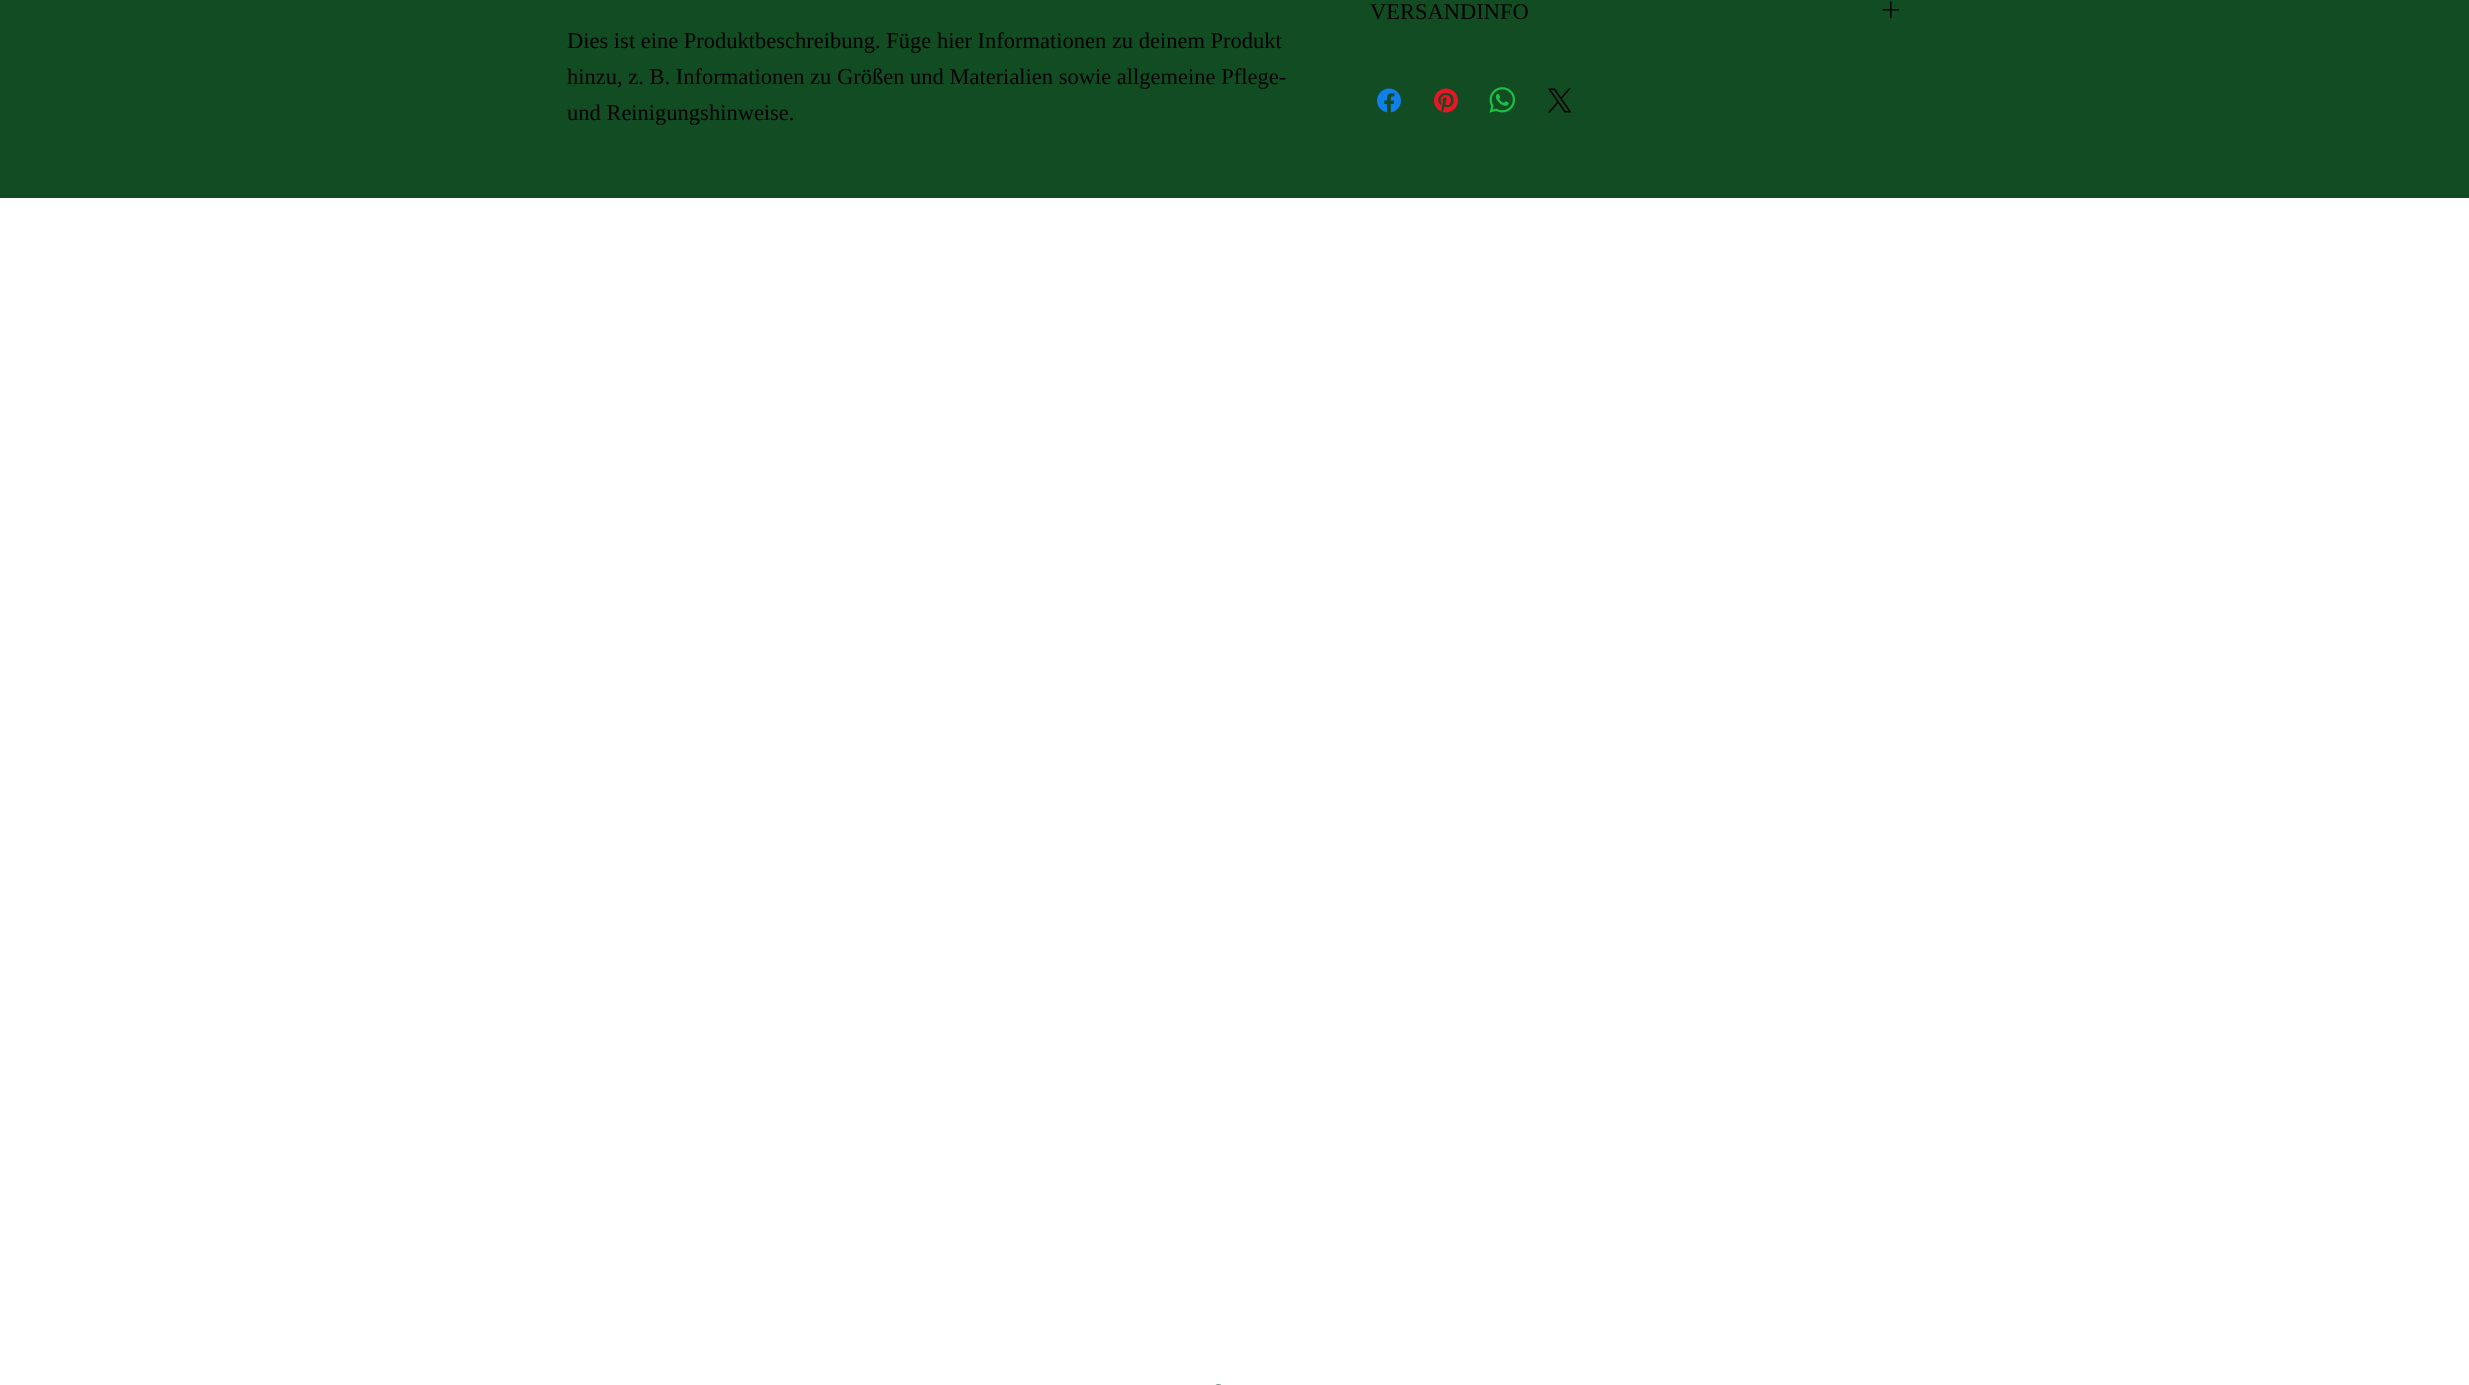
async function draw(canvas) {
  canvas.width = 2469;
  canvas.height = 1385;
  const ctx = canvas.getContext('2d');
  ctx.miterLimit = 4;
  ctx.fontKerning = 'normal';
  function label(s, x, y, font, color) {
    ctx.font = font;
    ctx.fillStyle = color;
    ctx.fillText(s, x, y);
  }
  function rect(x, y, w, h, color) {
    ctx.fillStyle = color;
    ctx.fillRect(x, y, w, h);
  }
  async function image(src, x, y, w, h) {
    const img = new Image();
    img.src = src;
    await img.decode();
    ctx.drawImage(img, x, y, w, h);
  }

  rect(0, 0, 2469, 1385, '#114c22');
  label('VERSANDINFO', 1370, 19, '22.5px Liberation Serif', '#000');
  await image('assets/img1.png', 1882, 1, 17, 17);
  await image('assets/img2.png', 1377, 88, 24, 25);
  await image('assets/img3.png', 1434, 88, 24, 25);
  await image('assets/img4.png', 1489, 87, 26, 26);
  await image('assets/img5.png', 1548, 88, 24, 25);
  label('Dies ist eine Produktbeschreibung. Füge hier Informationen zu deinem Produkt', 567, 48, '22.5px Liberation Serif', '#000');
  label('hinzu, z. B. Informationen zu Größen und Materialien sowie allgemeine Pflege-', 567, 84, '22.5px Liberation Serif', '#000');
  label('und Reinigungshinweise.', 567, 120, '22.5px Liberation Serif', '#000');
  rect(0, 198, 2469, 1187, '#fff');
  await image('assets/img6.png', 1215, 1384, 6, 1);
}

draw(document.querySelector('canvas'));
